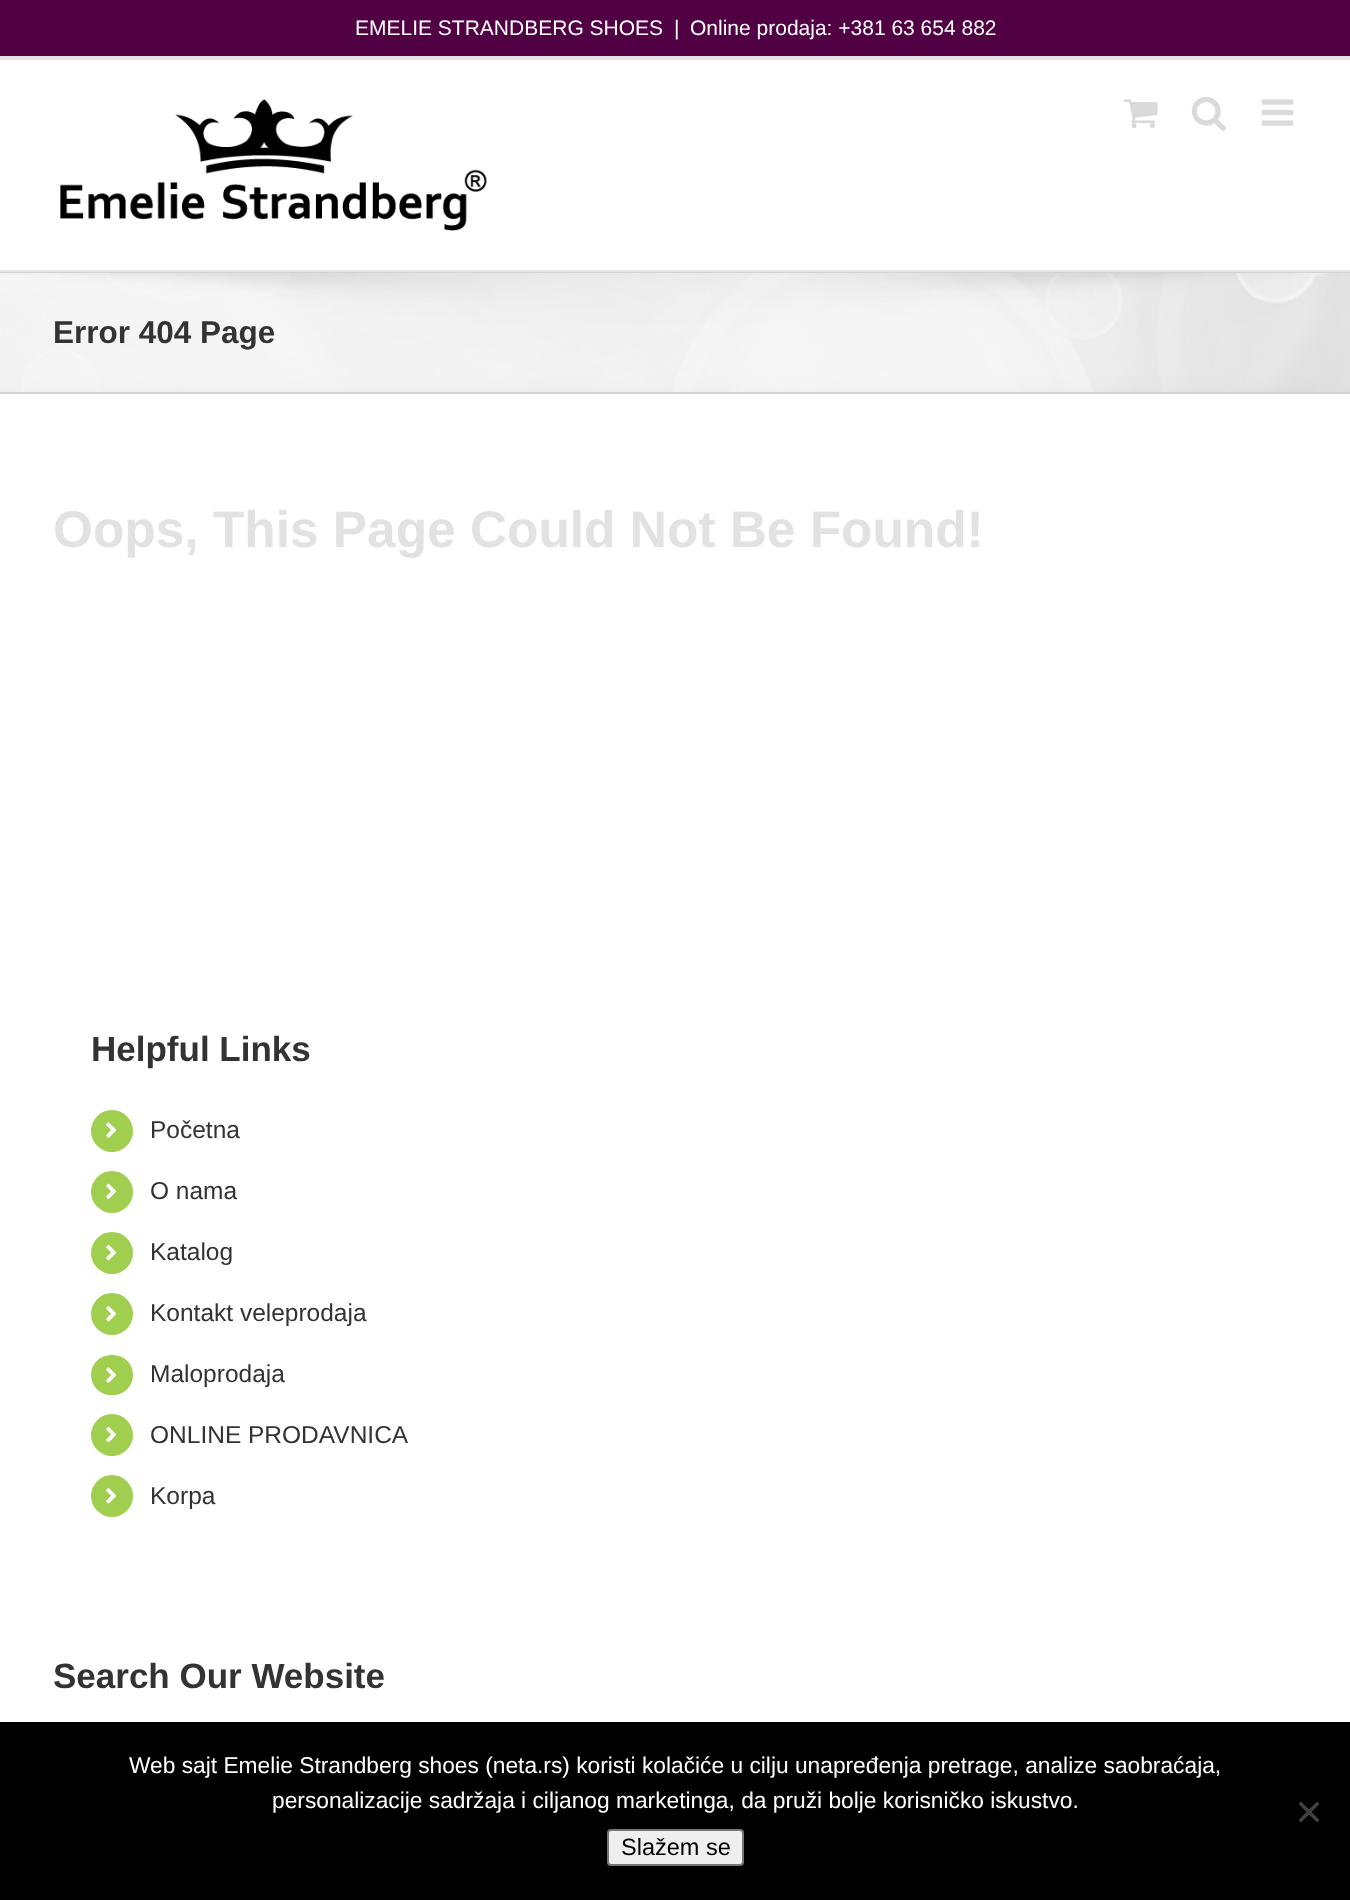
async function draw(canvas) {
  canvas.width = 1350;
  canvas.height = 1900;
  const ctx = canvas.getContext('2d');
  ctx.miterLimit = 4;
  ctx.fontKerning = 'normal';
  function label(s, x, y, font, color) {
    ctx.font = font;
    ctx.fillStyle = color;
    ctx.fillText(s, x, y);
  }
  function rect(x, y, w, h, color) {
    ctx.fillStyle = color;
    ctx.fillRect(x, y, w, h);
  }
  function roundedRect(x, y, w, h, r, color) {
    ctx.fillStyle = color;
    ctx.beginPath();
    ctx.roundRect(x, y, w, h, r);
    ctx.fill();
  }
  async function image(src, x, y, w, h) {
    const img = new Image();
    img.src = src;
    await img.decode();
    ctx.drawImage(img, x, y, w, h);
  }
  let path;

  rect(0, 0, 1350, 1900, '#fff');
  rect(0, 0, 1350, 56, '#510044');
  rect(0, 56, 1350, 4, '#e5e5e5');
  label('EMELIE STRANDBERG SHOES', 355, 35, '21px Liberation Sans', '#fff');
  label('|', 674, 35, '21px Liberation Sans', '#fff');
  label('Online prodaja: +381 63 654 882', 690, 35, '21px Liberation Sans', '#fff');
  rect(0, 270, 1350, 2, '#e5e5e5');
  await image('assets/img1.png', 60, 99, 427, 132);
  await image('assets/img2.png', 1123, 99, 35, 30);
  await image('assets/img3.png', 1191, 96, 35, 35);
  await image('assets/img4.png', 1261, 99, 33, 27);
  rect(0, 273, 1350, 119, '#f6f6f6');
  await image('assets/img5.png', 0, 273, 1350, 119);
  rect(0, 272, 1350, 1, '#d2d3d4');
  rect(0, 392, 1350, 2, '#d2d3d4');
  label('Error 404 Page', 53, 343, 'bold 31.5px Liberation Sans', '#333');
  label('Oops, This Page Could Not Be Found!', 53, 547, 'bold 51.4px Liberation Sans', '#e2e2e2');
  label('Helpful Links', 91, 1061, 'bold 35px Liberation Sans', '#333');
  ctx.fillStyle = '#a0ce4e';
  ctx.beginPath();
  ctx.arc(112, 1131, 21, 0, 2 * Math.PI);
  ctx.fill();
  await image('assets/img6.png', 106, 1122, 10, 16);
  label('Početna', 150, 1138, '24.5px Liberation Sans', '#333');
  ctx.fillStyle = '#a0ce4e';
  ctx.beginPath();
  ctx.arc(112, 1192, 21, 0, 2 * Math.PI);
  ctx.fill();
  await image('assets/img7.png', 106, 1183, 10, 16);
  label('O nama', 150, 1199, '24.5px Liberation Sans', '#333');
  ctx.fillStyle = '#a0ce4e';
  ctx.beginPath();
  ctx.arc(112, 1253, 21, 0, 2 * Math.PI);
  ctx.fill();
  await image('assets/img8.png', 106, 1244, 10, 17);
  label('Katalog', 150, 1260, '24.5px Liberation Sans', '#333');
  ctx.fillStyle = '#a0ce4e';
  ctx.beginPath();
  ctx.arc(112, 1314, 21, 0, 2 * Math.PI);
  ctx.fill();
  await image('assets/img9.png', 106, 1306, 10, 16);
  label('Kontakt veleprodaja', 150, 1321, '24.5px Liberation Sans', '#333');
  roundedRect(91, 1355, 42, 40, 20, '#a0ce4e');
  await image('assets/img6.png', 106, 1367, 10, 16);
  label('Maloprodaja', 150, 1382, '24.5px Liberation Sans', '#333');
  ctx.fillStyle = '#a0ce4e';
  ctx.beginPath();
  ctx.arc(112, 1435, 21, 0, 2 * Math.PI);
  ctx.fill();
  await image('assets/img8.png', 106, 1426, 10, 17);
  label('ONLINE PRODAVNICA', 150, 1443, '24.5px Liberation Sans', '#333');
  ctx.fillStyle = '#a0ce4e';
  ctx.beginPath();
  ctx.arc(112, 1496, 21, 0, 2 * Math.PI);
  ctx.fill();
  await image('assets/img9.png', 106, 1488, 10, 16);
  label('Korpa', 150, 1504, '24.5px Liberation Sans', '#333');
  label('Search Our Website', 53, 1688, 'bold 35px Liberation Sans', '#333');
  rect(0, 1722, 1350, 178, '#000');
  label('Web sajt Emelie Strandberg shoes (neta.rs) koristi kolačiće u cilju unapređenja pretrage, analize saobraćaja,', 129, 1773, '22.75px Liberation Sans', '#fff');
  label('personalizacije sadržaja i ciljanog marketinga, da pruži bolje korisničko iskustvo.', 272, 1808, '22.75px Liberation Sans', '#fff');
  ctx.fillStyle = '#404040';
  path = new Path2D('M1317 1801.5L1319.5 1804L1301 1822.5L1298.5 1820Z');
  ctx.fill(path);
  path = new Path2D('M1298.5 1804L1301 1801.5L1319.5 1820L1317 1822.5Z');
  ctx.fill(path);
  ctx.fillStyle = '#efefef';
  ctx.beginPath();
  ctx.roundRect(608, 1830, 135, 35, 3);
  ctx.fill();
  ctx.strokeStyle = '#767676';
  ctx.lineWidth = 2;
  ctx.stroke();
  label('Slažem se', 621, 1855, '23.5px Liberation Sans', '#000');
}

draw(document.querySelector('canvas'));
